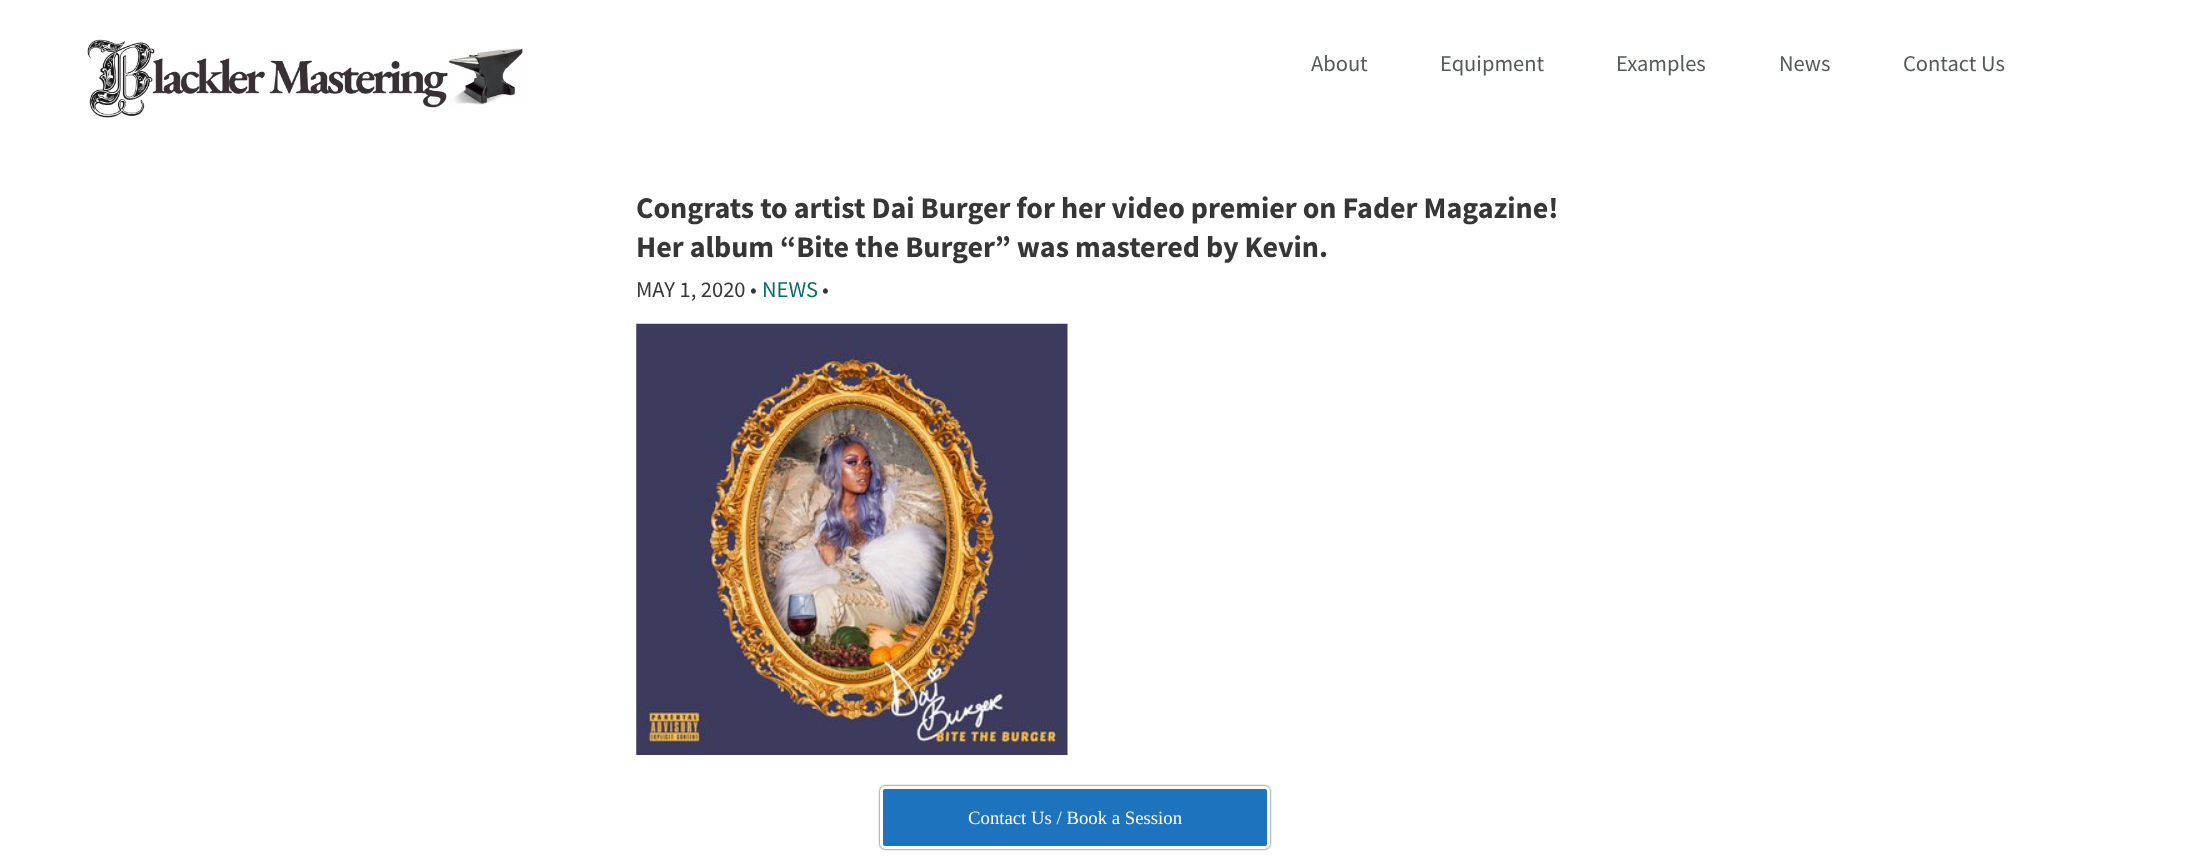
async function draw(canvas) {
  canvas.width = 2210;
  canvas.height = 864;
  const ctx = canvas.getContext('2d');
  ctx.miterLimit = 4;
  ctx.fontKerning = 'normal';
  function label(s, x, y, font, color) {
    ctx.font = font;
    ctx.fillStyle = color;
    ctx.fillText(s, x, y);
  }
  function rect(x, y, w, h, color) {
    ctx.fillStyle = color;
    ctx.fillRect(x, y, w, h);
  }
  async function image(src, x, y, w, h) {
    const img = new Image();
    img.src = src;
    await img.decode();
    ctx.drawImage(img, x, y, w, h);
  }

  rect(0, 0, 2210, 864, '#fff');
  await image('assets/img1.png', 87, 39, 436, 79);
  label('About', 1311, 71, '22.5px Source Sans Pro', '#54595f');
  label('Equipment', 1440, 71, '22.5px Source Sans Pro', '#54595f');
  label('Examples', 1616, 71, '22.5px Source Sans Pro', '#54595f');
  label('News', 1779, 71, '22.5px Source Sans Pro', '#54595f');
  label('Contact Us', 1903, 71, '22.5px Source Sans Pro', '#54595f');
  label('Congrats to artist Dai Burger for her video premier on Fader Magazine!', 636, 218, 'bold 30px Source Sans Pro', '#363636');
  label('Her album “Bite the Burger” was mastered by Kevin.', 636, 257, 'bold 30px Source Sans Pro', '#363636');
  label('MAY 1, 2020 •', 636, 297, '22.5px Source Sans Pro', '#363636');
  label('NEWS', 762, 297, '22.5px Source Sans Pro', '#096b70');
  label('•', 822, 297, '22.5px Source Sans Pro', '#363636');
  await image('assets/img2.png', 636, 323, 432, 432);
  ctx.fillStyle = '#333';
  ctx.filter = 'blur(1px)';
  ctx.beginPath();
  ctx.roundRect(880, 786, 390, 63, 5);
  ctx.fill();
  ctx.filter = 'none';
  ctx.fillStyle = '#1e73be';
  ctx.beginPath();
  ctx.roundRect(881.5, 787.5, 387, 60, 3.5);
  ctx.fill();
  ctx.strokeStyle = '#fff';
  ctx.lineWidth = 3;
  ctx.stroke();
  label('Contact Us / Book a Session', 968, 824, '18.75px Liberation Serif', '#fff');
}

draw(document.querySelector('canvas'));
